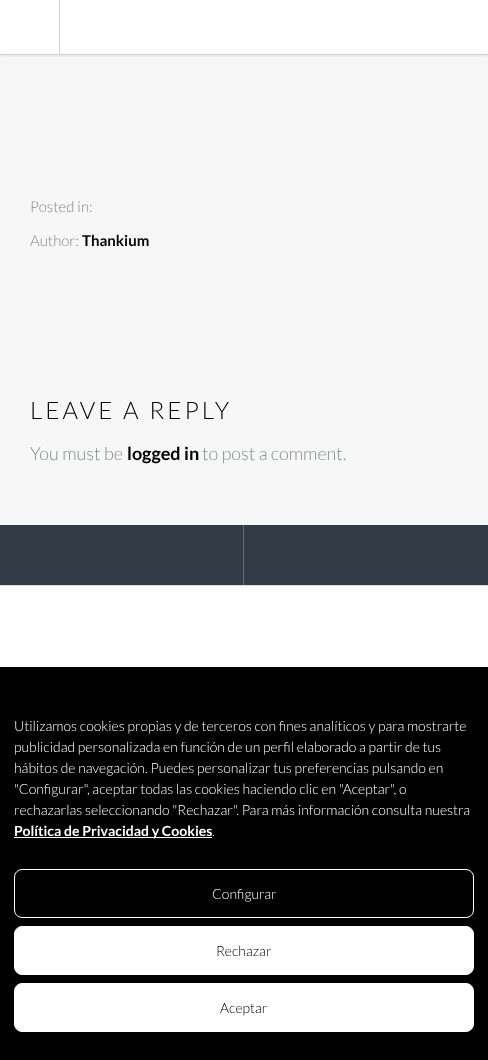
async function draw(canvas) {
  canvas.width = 488;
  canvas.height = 1060;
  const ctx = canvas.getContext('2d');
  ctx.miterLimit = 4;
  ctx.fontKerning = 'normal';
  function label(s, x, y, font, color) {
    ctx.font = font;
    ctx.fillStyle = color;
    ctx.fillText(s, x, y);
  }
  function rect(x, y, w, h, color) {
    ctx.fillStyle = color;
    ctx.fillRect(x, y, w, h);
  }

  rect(0, 0, 488, 1060, '#fff');
  rect(0, 55, 488, 470, '#f7f7f7');
  ctx.save();
  ctx.beginPath();
  ctx.rect(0, 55, 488, 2);
  ctx.clip();
  ctx.fillStyle = '#00000017';
  ctx.filter = 'blur(1.5px)';
  ctx.beginPath();
  ctx.rect(0, -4, 488, 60);
  ctx.fill();
  ctx.filter = 'none';
  ctx.restore();
  rect(0, 54, 488, 1, '#cad4dd');
  rect(59, 0, 1, 55, '#cad4dd');
  label('Posted in:', 30, 212, '300 15px Lato', '#7f8c8d');
  label('Author:', 30, 246, '300 15px Lato', '#7f8c8d');
  label('Thankium', 82, 246, 'bold 15px Lato', '#000');
  ctx.letterSpacing = '3px';
  label('LEAVE A REPLY', 30, 419, '300 24px Lato', '#000');
  ctx.letterSpacing = '0px';
  label('You must be', 30, 460, '300 18px Lato', '#7f8c8d');
  label('logged in', 127, 460, 'bold 18px Lato', '#000');
  label('to post a comment.', 202, 460, '300 18px Lato', '#7f8c8d');
  rect(0, 525, 488, 60, '#323a45');
  rect(243, 525, 1, 60, '#626a75');
  rect(0, 585, 488, 1, '#d8dadc');
  rect(0, 667, 488, 393, '#000');
  label('Utilizamos cookies propias y de terceros con fines analíticos y para mostrarte', 14, 731, '300 14px Lato', '#fff');
  label('publicidad personalizada en función de un perfil elaborado a partir de tus', 14, 752, '300 14px Lato', '#fff');
  label('hábitos de navegación. Puedes personalizar tus preferencias pulsando en', 14, 773, '300 14px Lato', '#fff');
  label('"Configurar", aceptar todas las cookies haciendo clic en "Aceptar", o', 14, 794, '300 14px Lato', '#fff');
  label('rechazarlas seleccionando "Rechazar". Para más información consulta nuestra', 14, 815, '300 14px Lato', '#fff');
  rect(14, 837, 198, 1, '#fff');
  label('Política de Privacidad y Cookies', 14, 836, 'bold 14px Lato', '#fff');
  label('.', 212, 836, '300 14px Lato', '#fff');
  ctx.beginPath();
  ctx.roundRect(14.5, 869.5, 459, 48, 7.5);
  ctx.strokeStyle = '#fff';
  ctx.stroke();
  label('Configurar', 212, 899, '300 14px Lato', '#fff');
  ctx.beginPath();
  ctx.roundRect(14.5, 926.5, 459, 48, 7.5);
  ctx.fill();
  ctx.stroke();
  label('Rechazar', 216, 956, '300 14px Lato', '#000');
  ctx.fillStyle = '#fff';
  ctx.beginPath();
  ctx.roundRect(14.5, 983.5, 459, 48, 7.5);
  ctx.fill();
  ctx.stroke();
  label('Aceptar', 220, 1013, '300 14px Lato', '#000');
}

draw(document.querySelector('canvas'));
